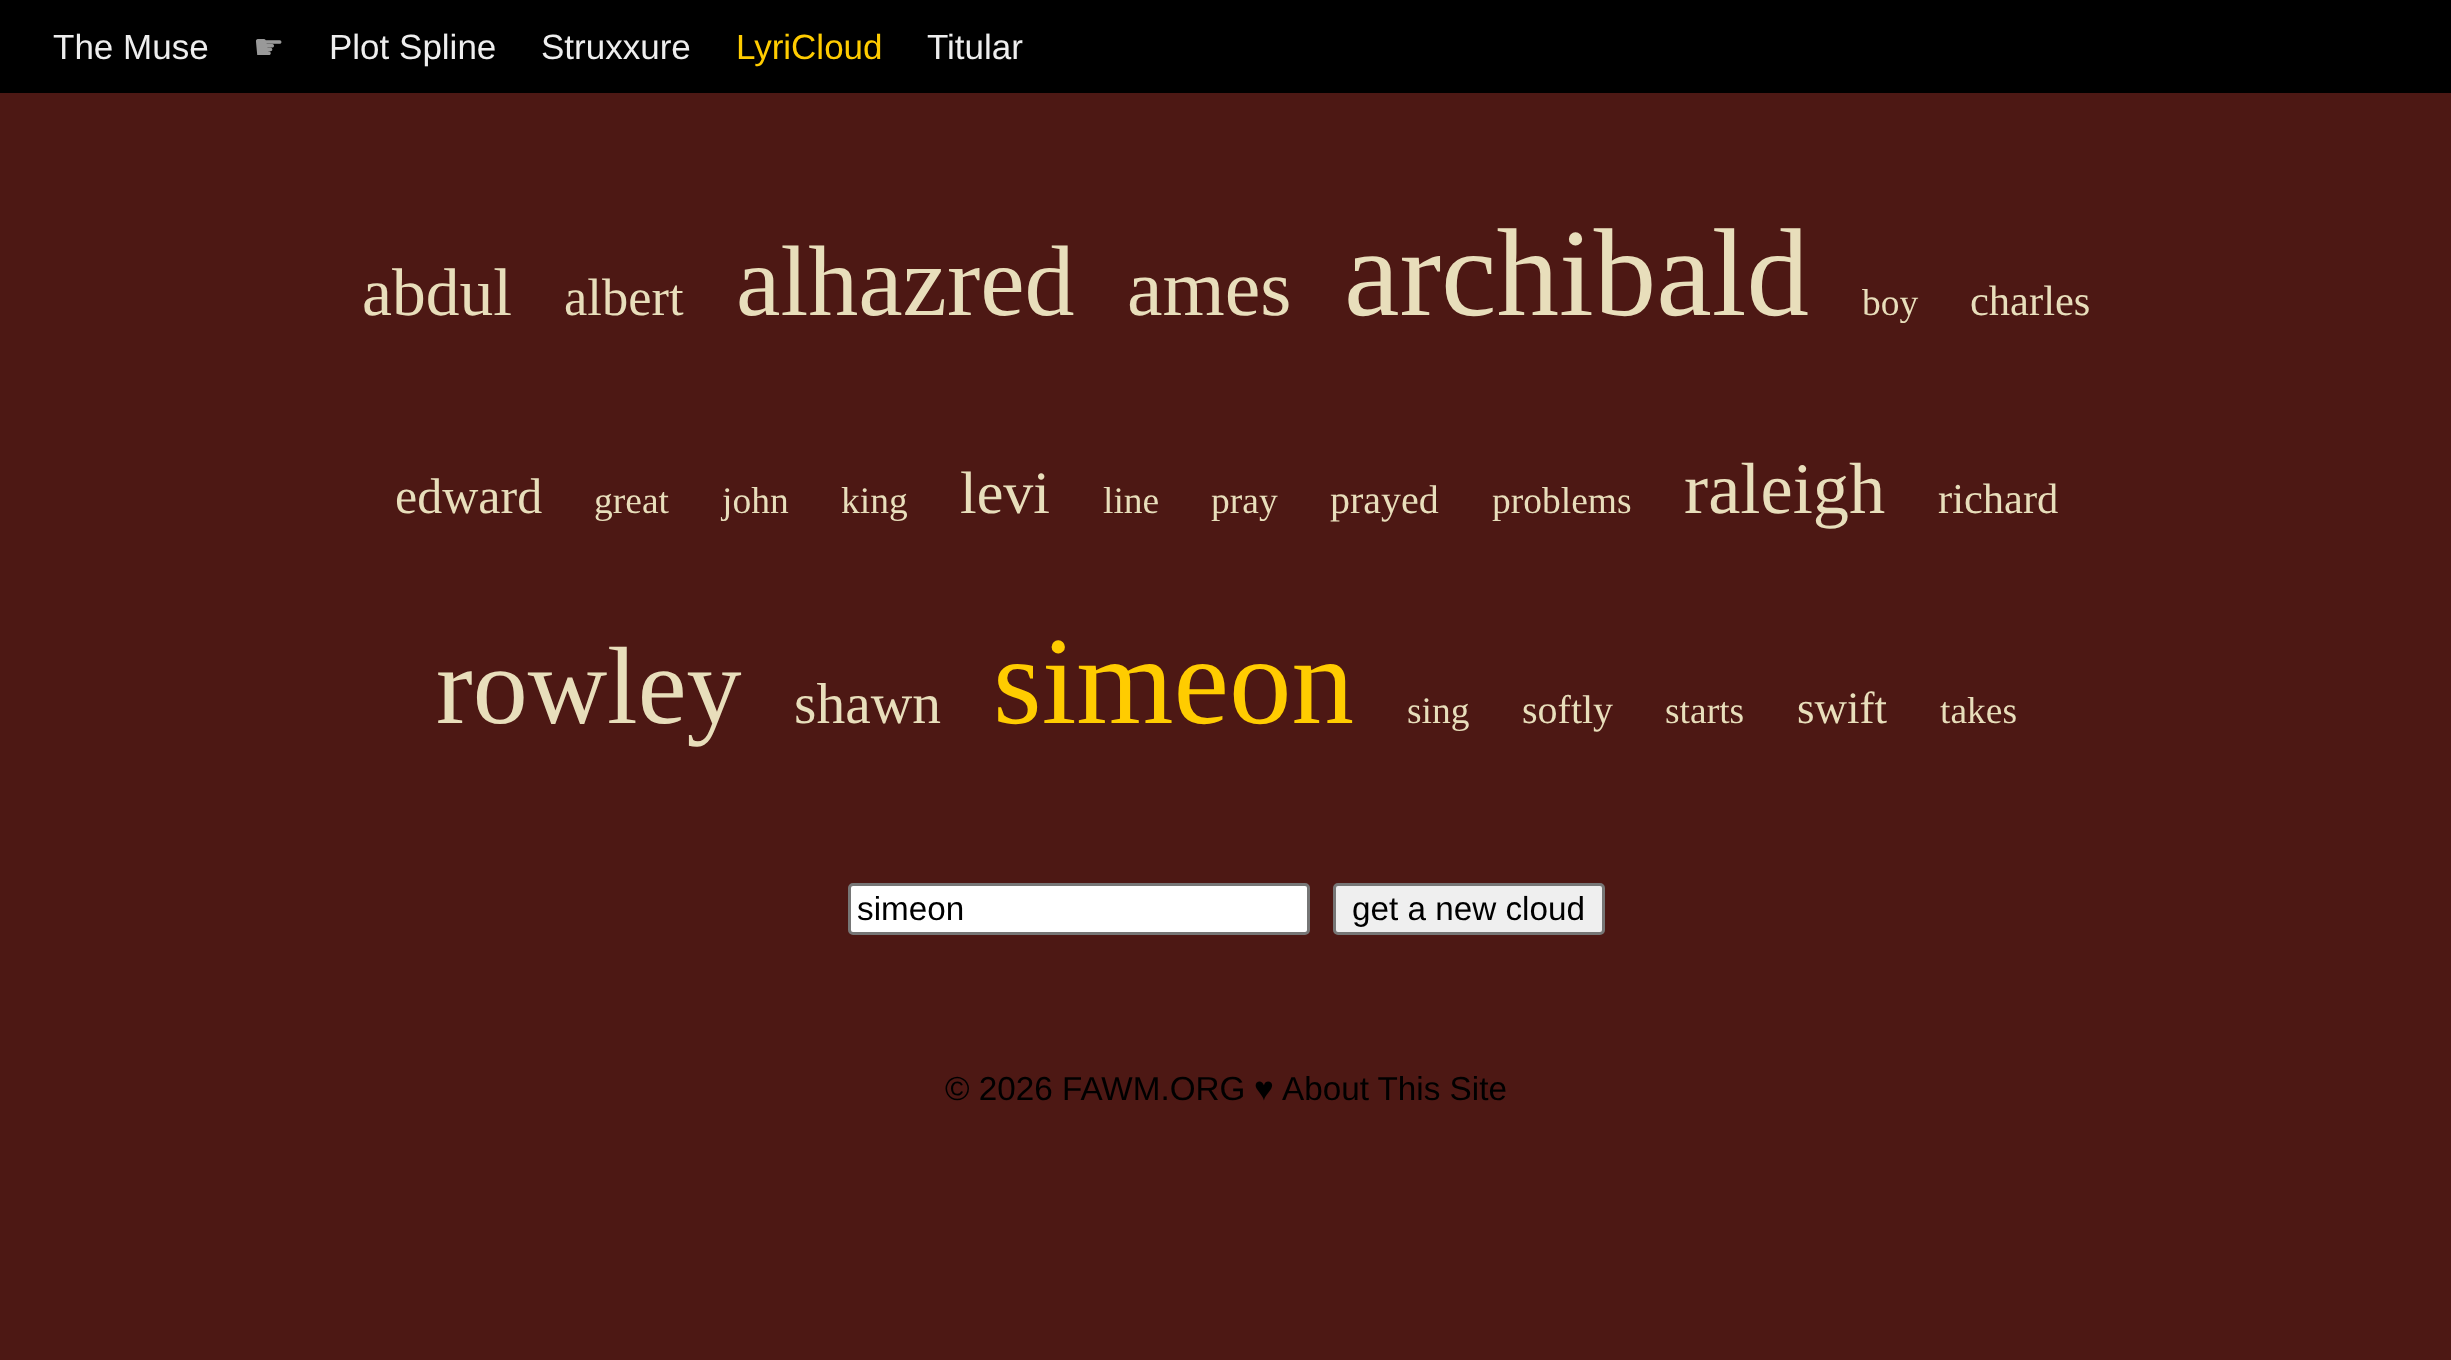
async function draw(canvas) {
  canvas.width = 2451;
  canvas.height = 1360;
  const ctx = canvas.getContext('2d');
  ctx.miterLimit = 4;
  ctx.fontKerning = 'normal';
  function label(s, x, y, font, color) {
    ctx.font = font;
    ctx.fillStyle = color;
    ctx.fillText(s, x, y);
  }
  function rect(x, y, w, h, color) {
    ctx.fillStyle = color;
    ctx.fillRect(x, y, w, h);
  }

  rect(0, 0, 2451, 1360, '#4d1814');
  rect(0, 0, 2451, 93, '#000');
  label('The Muse', 53, 59, '35px Liberation Sans', '#eee');
  label('☛', 253, 59, '35px DejaVu Sans', '#999');
  label('Plot Spline', 329, 59, '35px Liberation Sans', '#eee');
  label('Struxxure', 541, 59, '35px Liberation Sans', '#eee');
  label('LyriCloud', 736, 59, '35px Liberation Sans', '#fc0');
  label('Titular', 927, 59, '35px Liberation Sans', '#eee');
  label('abdul', 362, 315, '67.5px Liberation Serif', '#e8debb');
  label('albert', 564, 315, '52.5px Liberation Serif', '#e8debb');
  label('alhazred', 736, 315, '100px Liberation Serif', '#e8debb');
  label('ames', 1127, 315, '80px Liberation Serif', '#e8debb');
  label('archibald', 1344, 315, '125px Liberation Serif', '#e8debb');
  label('boy', 1862, 315, '37.5px Liberation Serif', '#e8debb');
  label('charles', 1970, 315, '42.5px Liberation Serif', '#e8debb');
  label('edward', 395, 513, '50px Liberation Serif', '#e8debb');
  label('great', 594, 513, '37.5px Liberation Serif', '#e8debb');
  label('john', 722, 513, '37.5px Liberation Serif', '#e8debb');
  label('king', 841, 513, '37.5px Liberation Serif', '#e8debb');
  label('levi', 960, 513, '60px Liberation Serif', '#e8debb');
  label('line', 1103, 513, '37.5px Liberation Serif', '#e8debb');
  label('pray', 1211, 513, '37.5px Liberation Serif', '#e8debb');
  label('prayed', 1330, 513, '40px Liberation Serif', '#e8debb');
  label('problems', 1492, 513, '37.5px Liberation Serif', '#e8debb');
  label('raleigh', 1684, 513, '72.5px Liberation Serif', '#e8debb');
  label('richard', 1938, 513, '42.5px Liberation Serif', '#e8debb');
  label('rowley', 436, 723, '110px Liberation Serif', '#e8debb');
  label('shawn', 794, 723, '57.5px Liberation Serif', '#e8debb');
  label('simeon', 993, 723, '125px Liberation Serif', '#fc0');
  label('sing', 1407, 723, '37.5px Liberation Serif', '#e8debb');
  label('softly', 1522, 723, '40px Liberation Serif', '#e8debb');
  label('starts', 1665, 723, '37.5px Liberation Serif', '#e8debb');
  label('swift', 1797, 723, '45px Liberation Serif', '#e8debb');
  label('takes', 1940, 723, '37.5px Liberation Serif', '#e8debb');
  ctx.fillStyle = '#fff';
  ctx.beginPath();
  ctx.roundRect(849.5, 884.5, 459, 49, 3.5);
  ctx.fill();
  ctx.strokeStyle = '#767676';
  ctx.lineWidth = 3;
  ctx.stroke();
  label('simeon', 857, 920, '33.25px Liberation Sans', '#000');
  ctx.fillStyle = '#efefef';
  ctx.beginPath();
  ctx.roundRect(1334.5, 884.5, 269, 49, 3.5);
  ctx.fill();
  ctx.stroke();
  label('get a new cloud', 1352, 920, '33.25px Liberation Sans', '#000');
  label('© 2026 FAWM.ORG', 945, 1100, '33.25px Liberation Sans', '#000');
  label('♥', 1254, 1100, '33.25px Liberation Sans', '#000');
  label('About This Site', 1282, 1100, '33.25px Liberation Sans', '#000');
}

draw(document.querySelector('canvas'));
